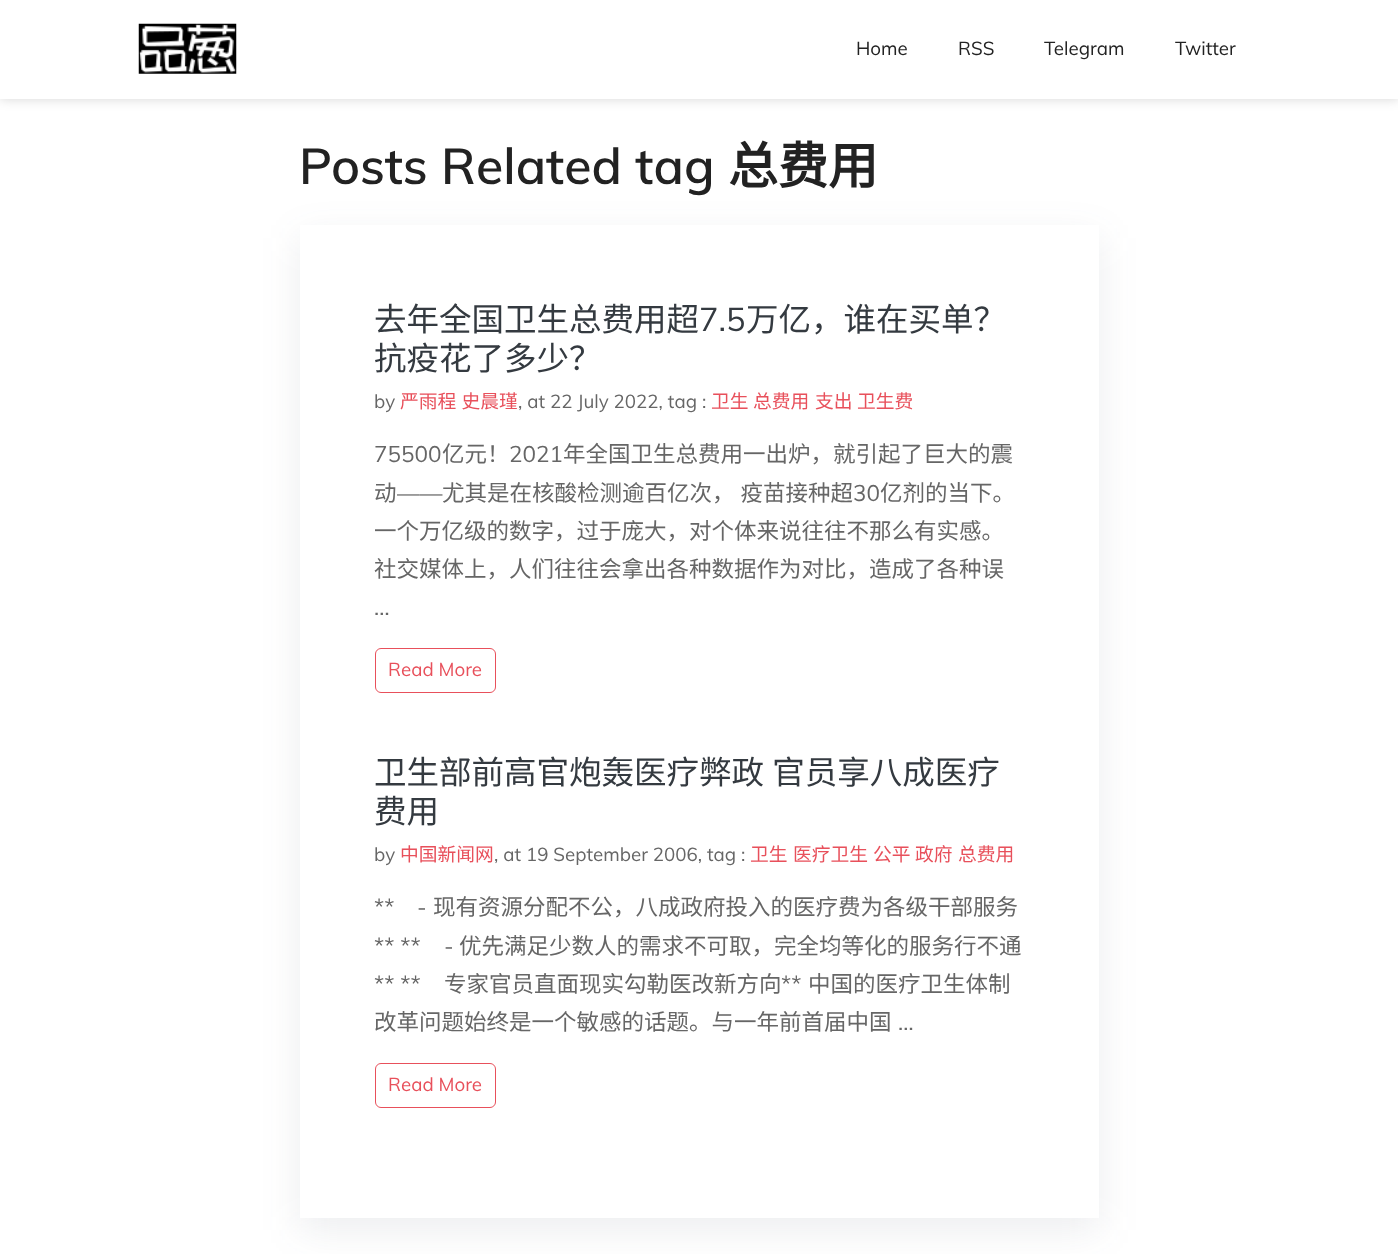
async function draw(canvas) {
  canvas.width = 1398;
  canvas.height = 1254;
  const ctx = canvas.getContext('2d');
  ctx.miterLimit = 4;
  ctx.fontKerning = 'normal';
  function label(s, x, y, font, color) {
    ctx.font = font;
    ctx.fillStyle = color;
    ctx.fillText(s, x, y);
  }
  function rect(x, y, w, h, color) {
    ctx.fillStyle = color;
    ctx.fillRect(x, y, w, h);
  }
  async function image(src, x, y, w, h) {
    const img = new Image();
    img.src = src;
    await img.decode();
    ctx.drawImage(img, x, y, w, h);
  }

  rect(0, 0, 1398, 1254, '#fff');
  ctx.fillStyle = '#00000029';
  ctx.filter = 'blur(6px)';
  ctx.beginPath();
  ctx.rect(0, 0, 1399, 99);
  ctx.fill();
  ctx.filter = 'none';
  rect(0, 0, 1398, 99, '#fff');
  await image('assets/img1.png', 138, 23, 99, 51);
  label('Home', 856, 55, '18.75px Muli', '#222');
  label('RSS', 958, 55, '18.75px Muli', '#222');
  label('Telegram', 1044, 55, '18.75px Muli', '#222');
  label('Twitter', 1175, 55, '18.75px Muli', '#222');
  ctx.fillStyle = '#444a661a';
  ctx.filter = 'blur(19px)';
  ctx.beginPath();
  ctx.rect(300, 238, 799, 992);
  ctx.fill();
  ctx.filter = 'none';
  label('Posts Related tag', 299, 184, '600 50px Muli', '#222');
  label('总费用', 728, 184, 'bold 50px Noto Sans CJK SC', '#222');
  rect(300, 225, 799, 993, '#fff');
  label('去年全国卫生总费用超', 374, 331, '32.5px Noto Sans CJK SC', '#343a40');
  label('7.5', 699, 331, '32.5px Muli', '#343a40');
  label('万亿，谁在买单？', 746, 331, '32.5px Noto Sans CJK SC', '#343a40');
  label('抗疫花了多少？', 374, 370, '32.5px Noto Sans CJK SC', '#343a40');
  label('by', 374, 408, '18.75px Muli', '#666');
  ctx.wordSpacing = '1px';
  label('严雨程 史晨瑾', 400, 408, '18.75px Noto Sans CJK SC', '#e8505b');
  ctx.wordSpacing = '0px';
  label(', at 22 July 2022, tag :', 518, 408, '18.75px Muli', '#666');
  label('卫生', 711, 408, '18.75px Noto Sans CJK SC', '#e8505b');
  label('总费用', 753, 408, '18.75px Noto Sans CJK SC', '#e8505b');
  label('支出', 815, 408, '18.75px Noto Sans CJK SC', '#e8505b');
  label('卫生费', 857, 408, '18.75px Noto Sans CJK SC', '#e8505b');
  label('75500', 374, 462, '22.5px Muli', '#666');
  label('亿元！', 442, 462, '22.5px Noto Sans CJK SC', '#666');
  label('2021', 509, 462, '22.5px Muli', '#666');
  label('年全国卫生总费用一出炉，就引起了巨大的震', 563, 462, '22.5px Noto Sans CJK SC', '#666');
  label('动', 374, 501, '22.5px Noto Sans CJK SC', '#666');
  label('——', 397, 501, '22.5px Muli', '#666');
  ctx.wordSpacing = '1px';
  label('尤其是在核酸检测逾百亿次， 疫苗接种超', 442, 501, '22.5px Noto Sans CJK SC', '#666');
  ctx.wordSpacing = '0px';
  label('30', 853, 501, '22.5px Muli', '#666');
  label('亿剂的当下。', 880, 501, '22.5px Noto Sans CJK SC', '#666');
  label('一个万亿级的数字，过于庞大，对个体来说往往不那么有实感。', 374, 539, '22.5px Noto Sans CJK SC', '#666');
  label('社交媒体上，人们往往会拿出各种数据作为对比，造成了各种误', 374, 577, '22.5px Noto Sans CJK SC', '#666');
  label('…', 374, 615, '22.5px Muli', '#666');
  ctx.beginPath();
  ctx.roundRect(375.5, 648.5, 120, 44, 5.5);
  ctx.strokeStyle = '#e8505b';
  ctx.stroke();
  label('Read More', 388, 676, '18.75px Muli', '#e8505b');
  ctx.wordSpacing = '1px';
  label('卫生部前高官炮轰医疗弊政 官员享八成医疗', 374, 784, '32.5px Noto Sans CJK SC', '#343a40');
  ctx.wordSpacing = '0px';
  label('费用', 374, 823, '32.5px Noto Sans CJK SC', '#343a40');
  label('by', 374, 861, '18.75px Muli', '#666');
  label('中国新闻网', 400, 861, '18.75px Noto Sans CJK SC', '#e8505b');
  label(', at 19 September 2006, tag :', 494, 861, '18.75px Muli', '#666');
  label('卫生', 750, 861, '18.75px Noto Sans CJK SC', '#e8505b');
  label('医疗卫生', 793, 861, '18.75px Noto Sans CJK SC', '#e8505b');
  label('公平', 873, 861, '18.75px Noto Sans CJK SC', '#e8505b');
  label('政府', 915, 861, '18.75px Noto Sans CJK SC', '#e8505b');
  label('总费用', 958, 861, '18.75px Noto Sans CJK SC', '#e8505b');
  label('**', 374, 915, '22.5px Muli', '#666');
  label('现有资源分配不公，八成政府投入的医疗费为各级干部服务', 433, 915, '22.5px Noto Sans CJK SC', '#666');
  label('-', 417, 915, '22.5px Muli', '#666');
  label('** **', 374, 954, '22.5px Muli', '#666');
  label('优先满足少数人的需求不可取，完全均等化的服务行不通', 459, 954, '22.5px Noto Sans CJK SC', '#666');
  label('-', 444, 954, '22.5px Muli', '#666');
  label('** **', 374, 992, '22.5px Muli', '#666');
  label('专家官员直面现实勾勒医改新方向', 444, 992, '22.5px Noto Sans CJK SC', '#666');
  label('**', 781, 992, '22.5px Muli', '#666');
  label('中国的医疗卫生体制', 808, 992, '22.5px Noto Sans CJK SC', '#666');
  label('改革问题始终是一个敏感的话题。与一年前首届中国', 374, 1030, '22.5px Noto Sans CJK SC', '#666');
  label('…', 898, 1030, '22.5px Muli', '#666');
  ctx.beginPath();
  ctx.roundRect(375.5, 1063.5, 120, 44, 5.5);
  ctx.stroke();
  label('Read More', 388, 1091, '18.75px Muli', '#e8505b');
}

draw(document.querySelector('canvas'));
